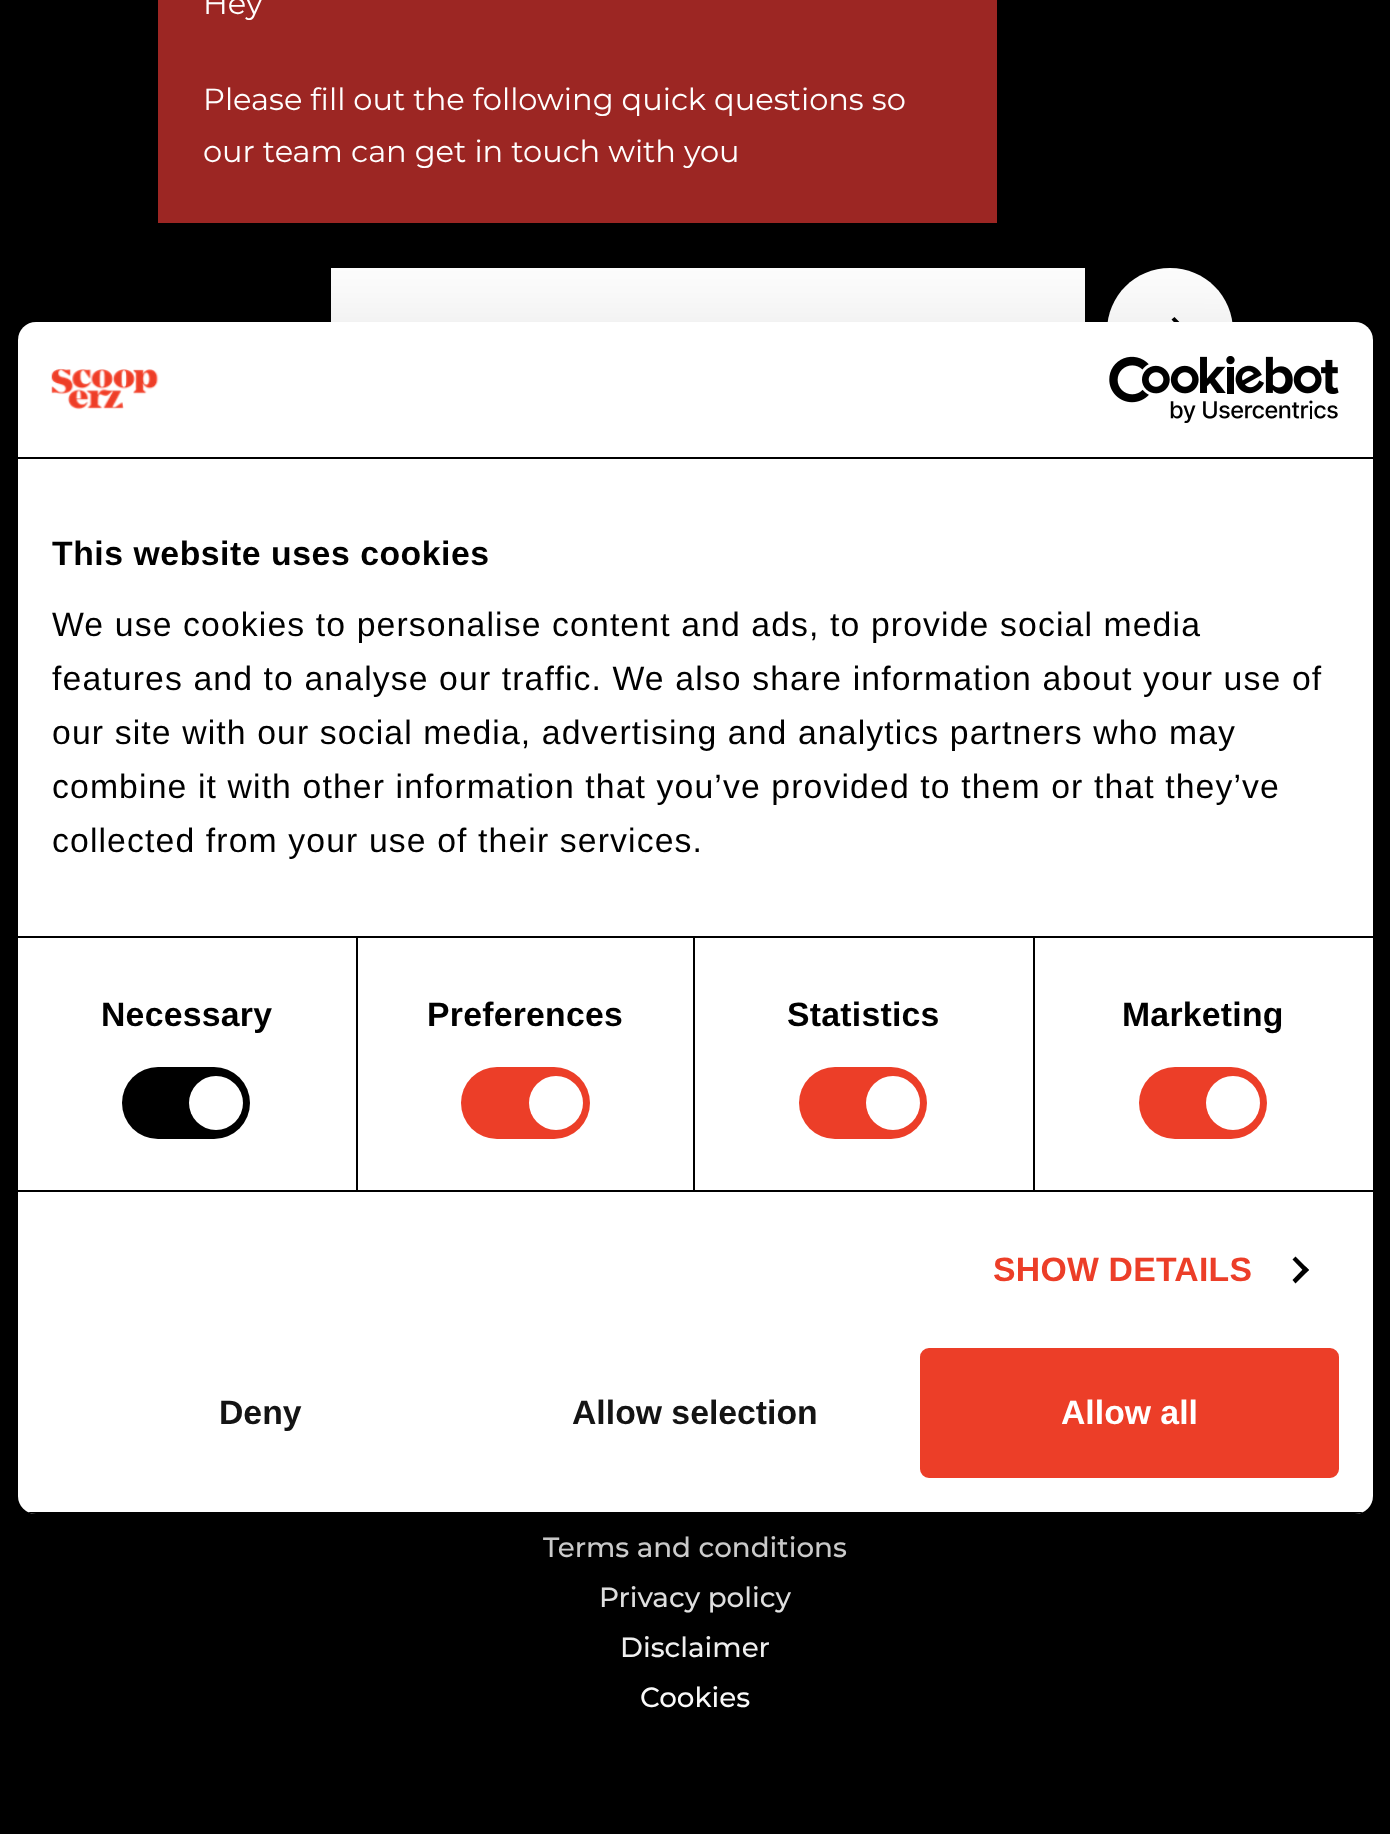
async function draw(canvas) {
  canvas.width = 1390;
  canvas.height = 1834;
  const ctx = canvas.getContext('2d');
  ctx.miterLimit = 4;
  ctx.fontKerning = 'normal';
  function label(s, x, y, font, color) {
    ctx.font = font;
    ctx.fillStyle = color;
    ctx.fillText(s, x, y);
  }
  function rect(x, y, w, h, color) {
    ctx.fillStyle = color;
    ctx.fillRect(x, y, w, h);
  }
  function roundedRect(x, y, w, h, r, color) {
    ctx.fillStyle = color;
    ctx.beginPath();
    ctx.roundRect(x, y, w, h, r);
    ctx.fill();
  }
  async function image(src, x, y, w, h) {
    const img = new Image();
    img.src = src;
    await img.decode();
    ctx.drawImage(img, x, y, w, h);
  }
  let path;

  rect(0, 0, 1390, 1834, '#000');
  rect(158, 0, 839, 223, '#9c2623');
  label('Hey', 203, 14, '30.5px Montserrat', '#fff');
  label('Please fill out the following quick questions so', 203, 110, '30.5px Montserrat', '#fff');
  label('our team can get in touch with you', 203, 162, '30.5px Montserrat', '#fff');
  rect(331, 268, 754, 54, '#fff');
  path = new Path2D('M1170 394C1135 394 1107 366 1107 331C1107 296 1135 268 1170 268C1205 268 1233 296 1233 331C1233 366 1205 394 1170 394Z');
  ctx.fill(path);
  ctx.fillStyle = '#000';
  path = new Path2D('M1152 332.5H1180L1171.5 341L1174.5 343.5L1187.5 330.5L1174.5 317L1171.5 319.5L1180 328.5H1152Z');
  ctx.fill(path);
  label('Terms and conditions', 543, 1557, '500 27.75px Montserrat', '#fff');
  label('Privacy policy', 599, 1607, '500 27.75px Montserrat', '#fff');
  label('Disclaimer', 620, 1657, '500 27.75px Montserrat', '#fff');
  label('Cookies', 640, 1707, '500 27.75px Montserrat', '#fff');
  ctx.fillStyle = '#0000004d';
  ctx.filter = 'blur(76.5px)';
  ctx.beginPath();
  ctx.roundRect(18, 394, 1355, 1192, 18);
  ctx.fill();
  ctx.filter = 'none';
  roundedRect(18, 322, 1355, 1192, 18, '#fff');
  rect(18, 457, 1355, 2, '#000');
  await image('assets/img1.png', 51, 368, 108, 42);
  await image('assets/img2.png', 1109, 356, 230, 67);
  rect(18, 936, 1355, 2, '#000');
  ctx.letterSpacing = '0.55px';
  label('This website uses cookies', 52, 565, 'bold 33.75px Liberation Sans', '#000');
  ctx.letterSpacing = '1.12px';
  label('We use cookies to personalise content and ads, to provide social media', 52, 636, '33.75px Liberation Sans', '#000');
  label('features and to analyse our traffic. We also share information about your use of', 52, 690, '33.75px Liberation Sans', '#000');
  label('our site with our social media, advertising and analytics partners who may', 52, 744, '33.75px Liberation Sans', '#000');
  label('combine it with other information that you’ve provided to them or that they’ve', 52, 798, '33.75px Liberation Sans', '#000');
  label('collected from your use of their services.', 52, 852, '33.75px Liberation Sans', '#000');
  rect(18, 1190, 1355, 2, '#000');
  rect(356, 938, 2, 252, '#000');
  ctx.letterSpacing = '0.25px';
  label('Necessary', 101, 1026, 'bold 33.75px Liberation Sans', '#000');
  roundedRect(122, 1067, 128, 72, 36, '#000');
  ctx.fillStyle = '#fff';
  ctx.beginPath();
  ctx.arc(216, 1103, 27, 0, 2 * Math.PI);
  ctx.fill();
  rect(693, 938, 2, 252, '#000');
  label('Preferences', 427, 1026, 'bold 33.75px Liberation Sans', '#000');
  roundedRect(461, 1067, 129, 72, 36, '#ec3e28');
  ctx.fillStyle = '#fff';
  ctx.beginPath();
  ctx.arc(556, 1103, 27, 0, 2 * Math.PI);
  ctx.fill();
  rect(1033, 938, 2, 252, '#000');
  label('Statistics', 787, 1026, 'bold 33.75px Liberation Sans', '#000');
  roundedRect(799, 1067, 128, 72, 36, '#ec3e28');
  ctx.fillStyle = '#fff';
  ctx.beginPath();
  ctx.arc(893, 1103, 27, 0, 2 * Math.PI);
  ctx.fill();
  label('Marketing', 1122, 1026, 'bold 33.75px Liberation Sans', '#000');
  roundedRect(1139, 1067, 128, 72, 36, '#ec3e28');
  ctx.fillStyle = '#fff';
  ctx.beginPath();
  ctx.arc(1233, 1103, 27, 0, 2 * Math.PI);
  ctx.fill();
  label('SHOW DETAILS', 993, 1281, 'bold 33.75px Liberation Sans', '#ec3e28');
  ctx.fillStyle = '#000';
  path = new Path2D('M1295.5 1256.5L1309 1270L1305.5 1273L1292.5 1259.5Z');
  ctx.fill(path);
  path = new Path2D('M1305.5 1266.5L1309 1270L1295.5 1283.5L1292.5 1280Z');
  ctx.fill(path);
  ctx.save();
  ctx.beginPath();
  ctx.roundRect(18, 322, 1355, 1192, 18);
  ctx.clip();
  rect(28, 1512, 1335, 2, '#000');
  ctx.restore();
  ctx.letterSpacing = '0px';
  label('Deny', 219, 1424, 'bold 33.75px Liberation Sans', '#141414');
  label('Allow selection', 572, 1424, 'bold 33.75px Liberation Sans', '#141414');
  ctx.fillStyle = '#ec3e28';
  ctx.beginPath();
  ctx.roundRect(922.5, 1350.5, 414, 125, 6.5);
  ctx.fill();
  ctx.strokeStyle = '#ec3e28';
  ctx.lineWidth = 5;
  ctx.stroke();
  label('Allow all', 1061, 1424, 'bold 33.75px Liberation Sans', '#fff');
}

draw(document.querySelector('canvas'));
